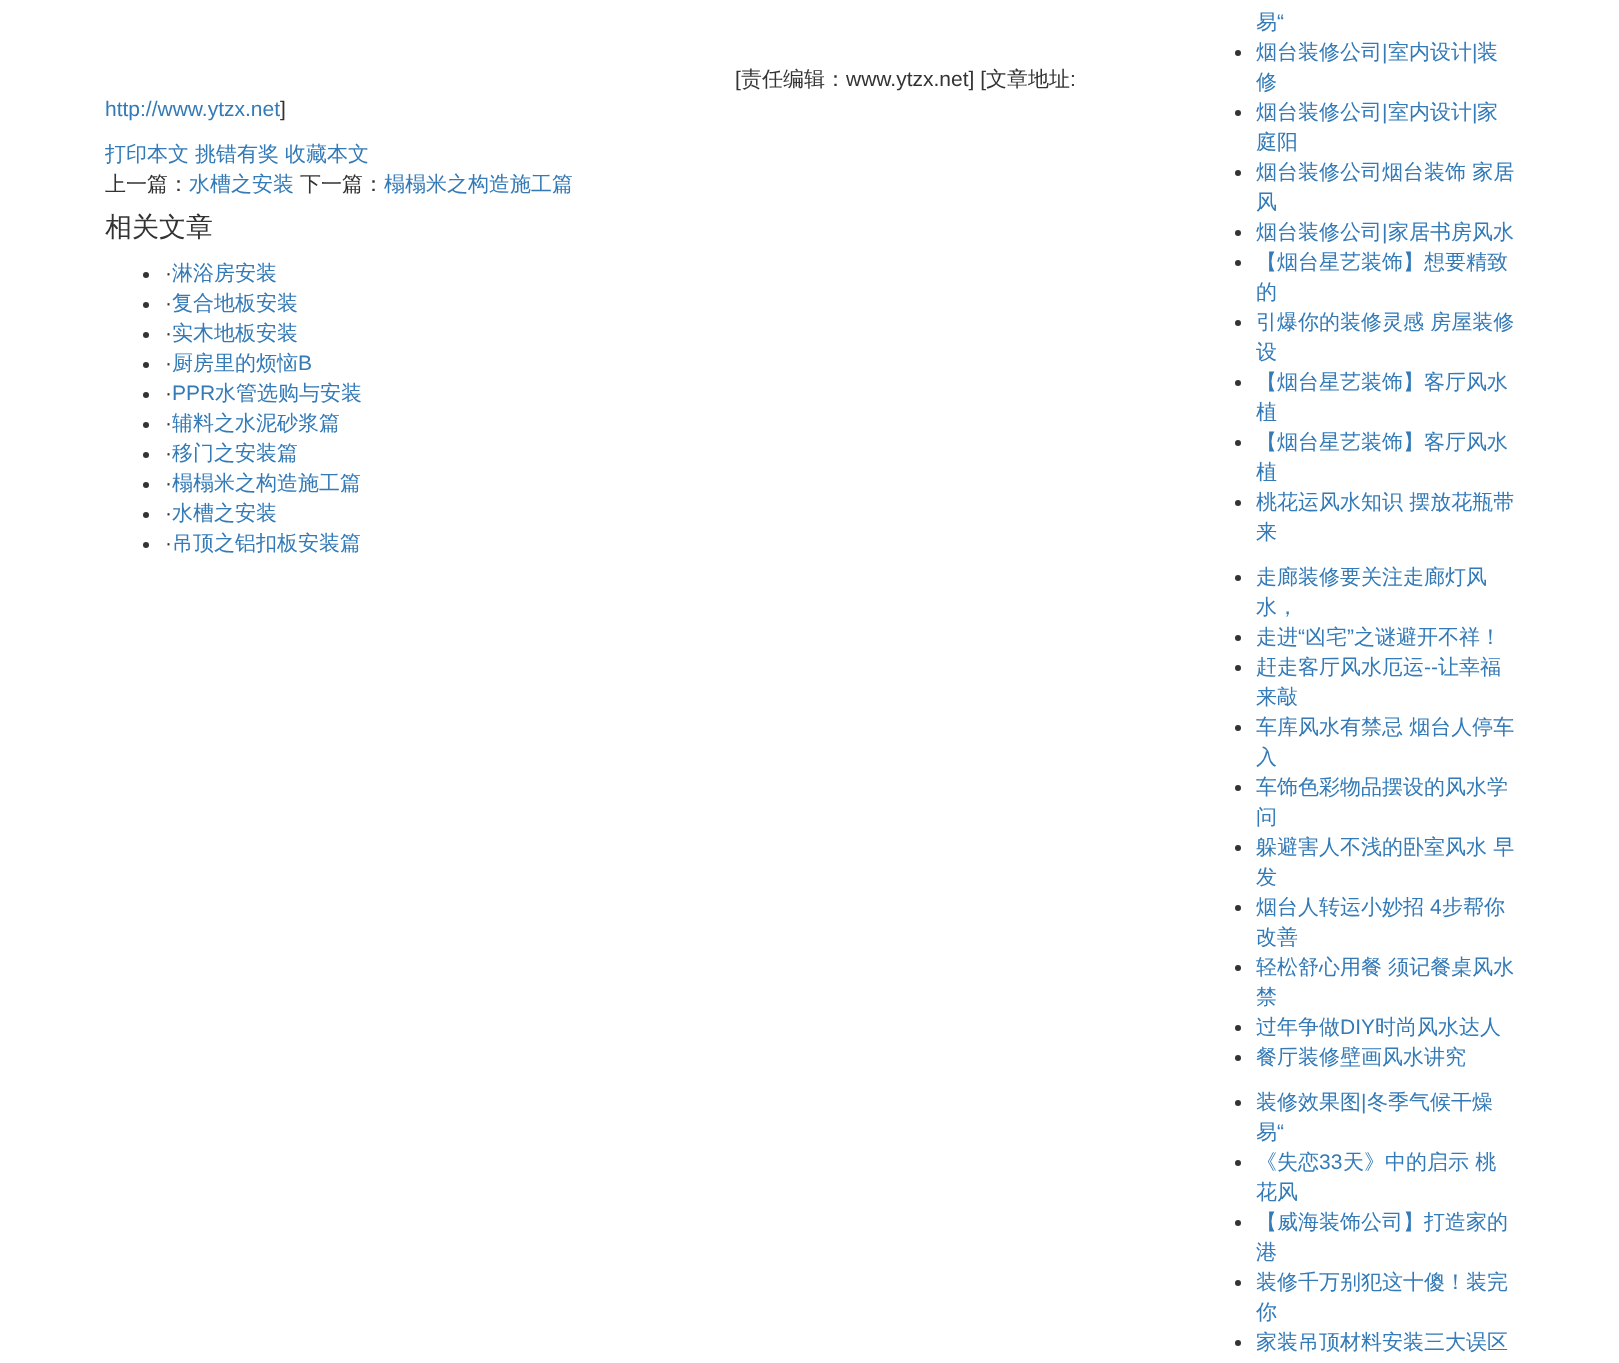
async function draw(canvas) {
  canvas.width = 1619;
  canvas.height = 1363;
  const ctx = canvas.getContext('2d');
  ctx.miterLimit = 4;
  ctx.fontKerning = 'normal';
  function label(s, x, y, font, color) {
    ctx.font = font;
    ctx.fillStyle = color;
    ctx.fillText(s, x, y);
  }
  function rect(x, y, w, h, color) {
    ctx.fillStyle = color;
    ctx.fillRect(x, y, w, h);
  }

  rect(0, 0, 1619, 1363, '#fff');
  label('[', 735, 86, '21px Liberation Sans', '#333');
  label('责任编辑：', 741, 86, '500 21px WenQuanYi Zen Hei', '#333');
  label('www.ytzx.net] [', 846, 86, '21px Liberation Sans', '#333');
  label('文章地址', 986, 86, '500 21px WenQuanYi Zen Hei', '#333');
  label(':', 1070, 86, '21px Liberation Sans', '#333');
  label('http://www.ytzx.net', 105, 116, '21px Liberation Sans', '#337ab7');
  label(']', 280, 116, '21px Liberation Sans', '#333');
  label('打印本文', 105, 161, '500 21px WenQuanYi Zen Hei', '#337ab7');
  label('挑错有奖', 195, 161, '500 21px WenQuanYi Zen Hei', '#337ab7');
  label('收藏本文', 285, 161, '500 21px WenQuanYi Zen Hei', '#337ab7');
  label('上一篇：', 105, 191, '500 21px WenQuanYi Zen Hei', '#333');
  label('水槽之安装', 189, 191, '500 21px WenQuanYi Zen Hei', '#337ab7');
  label('下一篇：', 300, 191, '500 21px WenQuanYi Zen Hei', '#333');
  label('榻榻米之构造施工篇', 384, 191, '500 21px WenQuanYi Zen Hei', '#337ab7');
  label('相关文章', 105, 236, '500 27px WenQuanYi Zen Hei', '#333');
  ctx.beginPath();
  ctx.arc(146, 275, 3, 0, 2 * Math.PI);
  ctx.fill();
  label('·', 165, 280, '21px Liberation Sans', '#333');
  label('淋浴房安装', 172, 280, '500 21px WenQuanYi Zen Hei', '#337ab7');
  ctx.fillStyle = '#333';
  ctx.beginPath();
  ctx.arc(146, 305, 3, 0, 2 * Math.PI);
  ctx.fill();
  label('·', 165, 310, '21px Liberation Sans', '#333');
  label('复合地板安装', 172, 310, '500 21px WenQuanYi Zen Hei', '#337ab7');
  ctx.fillStyle = '#333';
  ctx.beginPath();
  ctx.arc(146, 335, 3, 0, 2 * Math.PI);
  ctx.fill();
  label('·', 165, 340, '21px Liberation Sans', '#333');
  label('实木地板安装', 172, 340, '500 21px WenQuanYi Zen Hei', '#337ab7');
  ctx.fillStyle = '#333';
  ctx.beginPath();
  ctx.arc(146, 365, 3, 0, 2 * Math.PI);
  ctx.fill();
  label('·', 165, 370, '21px Liberation Sans', '#333');
  label('厨房里的烦恼', 172, 370, '500 21px WenQuanYi Zen Hei', '#337ab7');
  label('B', 298, 370, '21px Liberation Sans', '#337ab7');
  ctx.fillStyle = '#333';
  ctx.beginPath();
  ctx.arc(146, 395, 3, 0, 2 * Math.PI);
  ctx.fill();
  label('·', 165, 400, '21px Liberation Sans', '#333');
  label('PPR', 172, 400, '21px Liberation Sans', '#337ab7');
  label('水管选购与安装', 215, 400, '500 21px WenQuanYi Zen Hei', '#337ab7');
  ctx.fillStyle = '#333';
  ctx.beginPath();
  ctx.arc(146, 425, 3, 0, 2 * Math.PI);
  ctx.fill();
  label('·', 165, 430, '21px Liberation Sans', '#333');
  label('辅料之水泥砂浆篇', 172, 430, '500 21px WenQuanYi Zen Hei', '#337ab7');
  ctx.fillStyle = '#333';
  ctx.beginPath();
  ctx.arc(146, 455, 3, 0, 2 * Math.PI);
  ctx.fill();
  label('·', 165, 460, '21px Liberation Sans', '#333');
  label('移门之安装篇', 172, 460, '500 21px WenQuanYi Zen Hei', '#337ab7');
  ctx.fillStyle = '#333';
  ctx.beginPath();
  ctx.arc(146, 485, 3, 0, 2 * Math.PI);
  ctx.fill();
  label('·', 165, 490, '21px Liberation Sans', '#333');
  label('榻榻米之构造施工篇', 172, 490, '500 21px WenQuanYi Zen Hei', '#337ab7');
  ctx.fillStyle = '#333';
  ctx.beginPath();
  ctx.arc(146, 515, 3, 0, 2 * Math.PI);
  ctx.fill();
  label('·', 165, 520, '21px Liberation Sans', '#333');
  label('水槽之安装', 172, 520, '500 21px WenQuanYi Zen Hei', '#337ab7');
  ctx.fillStyle = '#333';
  ctx.beginPath();
  ctx.arc(146, 545, 3, 0, 2 * Math.PI);
  ctx.fill();
  label('·', 165, 550, '21px Liberation Sans', '#333');
  label('吊顶之铝扣板安装篇', 172, 550, '500 21px WenQuanYi Zen Hei', '#337ab7');
  label('易', 1256, 29, '500 21px WenQuanYi Zen Hei', '#337ab7');
  label('“', 1277, 29, '21px Liberation Sans', '#337ab7');
  ctx.fillStyle = '#333';
  ctx.beginPath();
  ctx.arc(1238, 53, 3, 0, 2 * Math.PI);
  ctx.fill();
  label('烟台装修公司', 1256, 59, '500 21px WenQuanYi Zen Hei', '#337ab7');
  label('|', 1382, 59, '21px Liberation Sans', '#337ab7');
  label('室内设计', 1388, 59, '500 21px WenQuanYi Zen Hei', '#337ab7');
  label('|', 1472, 59, '21px Liberation Sans', '#337ab7');
  label('装', 1477, 59, '500 21px WenQuanYi Zen Hei', '#337ab7');
  label('修', 1256, 89, '500 21px WenQuanYi Zen Hei', '#337ab7');
  ctx.fillStyle = '#333';
  ctx.beginPath();
  ctx.arc(1238, 113, 3, 0, 2 * Math.PI);
  ctx.fill();
  label('烟台装修公司', 1256, 119, '500 21px WenQuanYi Zen Hei', '#337ab7');
  label('|', 1382, 119, '21px Liberation Sans', '#337ab7');
  label('室内设计', 1388, 119, '500 21px WenQuanYi Zen Hei', '#337ab7');
  label('|', 1472, 119, '21px Liberation Sans', '#337ab7');
  label('家', 1477, 119, '500 21px WenQuanYi Zen Hei', '#337ab7');
  label('庭阳', 1256, 149, '500 21px WenQuanYi Zen Hei', '#337ab7');
  ctx.fillStyle = '#333';
  ctx.beginPath();
  ctx.arc(1238, 173, 3, 0, 2 * Math.PI);
  ctx.fill();
  label('烟台装修公司烟台装饰 家居', 1256, 179, '500 21px WenQuanYi Zen Hei', '#337ab7');
  label('风', 1256, 209, '500 21px WenQuanYi Zen Hei', '#337ab7');
  ctx.fillStyle = '#333';
  ctx.beginPath();
  ctx.arc(1238, 233, 3, 0, 2 * Math.PI);
  ctx.fill();
  label('烟台装修公司', 1256, 239, '500 21px WenQuanYi Zen Hei', '#337ab7');
  label('|', 1382, 239, '21px Liberation Sans', '#337ab7');
  label('家居书房风水', 1388, 239, '500 21px WenQuanYi Zen Hei', '#337ab7');
  ctx.fillStyle = '#333';
  ctx.beginPath();
  ctx.arc(1238, 263, 3, 0, 2 * Math.PI);
  ctx.fill();
  label('【烟台星艺装饰】想要精致', 1256, 269, '500 21px WenQuanYi Zen Hei', '#337ab7');
  label('的', 1256, 299, '500 21px WenQuanYi Zen Hei', '#337ab7');
  ctx.fillStyle = '#333';
  ctx.beginPath();
  ctx.arc(1238, 323, 3, 0, 2 * Math.PI);
  ctx.fill();
  label('引爆你的装修灵感 房屋装修', 1256, 329, '500 21px WenQuanYi Zen Hei', '#337ab7');
  label('设', 1256, 359, '500 21px WenQuanYi Zen Hei', '#337ab7');
  ctx.fillStyle = '#333';
  ctx.beginPath();
  ctx.arc(1238, 383, 3, 0, 2 * Math.PI);
  ctx.fill();
  label('【烟台星艺装饰】客厅风水', 1256, 389, '500 21px WenQuanYi Zen Hei', '#337ab7');
  label('植', 1256, 419, '500 21px WenQuanYi Zen Hei', '#337ab7');
  ctx.fillStyle = '#333';
  ctx.beginPath();
  ctx.arc(1238, 443, 3, 0, 2 * Math.PI);
  ctx.fill();
  label('【烟台星艺装饰】客厅风水', 1256, 449, '500 21px WenQuanYi Zen Hei', '#337ab7');
  label('植', 1256, 479, '500 21px WenQuanYi Zen Hei', '#337ab7');
  ctx.fillStyle = '#333';
  ctx.beginPath();
  ctx.arc(1238, 503, 3, 0, 2 * Math.PI);
  ctx.fill();
  label('桃花运风水知识 摆放花瓶带', 1256, 509, '500 21px WenQuanYi Zen Hei', '#337ab7');
  label('来', 1256, 539, '500 21px WenQuanYi Zen Hei', '#337ab7');
  ctx.fillStyle = '#333';
  ctx.beginPath();
  ctx.arc(1238, 578, 3, 0, 2 * Math.PI);
  ctx.fill();
  label('走廊装修要关注走廊灯风', 1256, 584, '500 21px WenQuanYi Zen Hei', '#337ab7');
  label('水，', 1256, 614, '500 21px WenQuanYi Zen Hei', '#337ab7');
  label('走进', 1256, 644, '500 21px WenQuanYi Zen Hei', '#337ab7');
  label('“', 1298, 644, '21px Liberation Sans', '#337ab7');
  label('凶宅', 1305, 644, '500 21px WenQuanYi Zen Hei', '#337ab7');
  label('”', 1347, 644, '21px Liberation Sans', '#337ab7');
  label('之谜避开不祥！', 1354, 644, '500 21px WenQuanYi Zen Hei', '#337ab7');
  ctx.fillStyle = '#333';
  ctx.beginPath();
  ctx.arc(1238, 638, 3, 0, 2 * Math.PI);
  ctx.fill();
  ctx.beginPath();
  ctx.arc(1238, 668, 3, 0, 2 * Math.PI);
  ctx.fill();
  label('赶走客厅风水厄运', 1256, 674, '500 21px WenQuanYi Zen Hei', '#337ab7');
  label('--', 1424, 674, '21px Liberation Sans', '#337ab7');
  label('让幸福', 1438, 674, '500 21px WenQuanYi Zen Hei', '#337ab7');
  label('来敲', 1256, 704, '500 21px WenQuanYi Zen Hei', '#337ab7');
  ctx.fillStyle = '#333';
  ctx.beginPath();
  ctx.arc(1238, 728, 3, 0, 2 * Math.PI);
  ctx.fill();
  label('车库风水有禁忌 烟台人停车', 1256, 734, '500 21px WenQuanYi Zen Hei', '#337ab7');
  label('入', 1256, 764, '500 21px WenQuanYi Zen Hei', '#337ab7');
  ctx.fillStyle = '#333';
  ctx.beginPath();
  ctx.arc(1238, 788, 3, 0, 2 * Math.PI);
  ctx.fill();
  label('车饰色彩物品摆设的风水学', 1256, 794, '500 21px WenQuanYi Zen Hei', '#337ab7');
  label('问', 1256, 824, '500 21px WenQuanYi Zen Hei', '#337ab7');
  ctx.fillStyle = '#333';
  ctx.beginPath();
  ctx.arc(1238, 848, 3, 0, 2 * Math.PI);
  ctx.fill();
  label('躲避害人不浅的卧室风水 早', 1256, 854, '500 21px WenQuanYi Zen Hei', '#337ab7');
  label('发', 1256, 884, '500 21px WenQuanYi Zen Hei', '#337ab7');
  ctx.fillStyle = '#333';
  ctx.beginPath();
  ctx.arc(1238, 908, 3, 0, 2 * Math.PI);
  ctx.fill();
  label('烟台人转运小妙招', 1256, 914, '500 21px WenQuanYi Zen Hei', '#337ab7');
  label('4', 1430, 914, '21px Liberation Sans', '#337ab7');
  label('步帮你', 1442, 914, '500 21px WenQuanYi Zen Hei', '#337ab7');
  label('改善', 1256, 944, '500 21px WenQuanYi Zen Hei', '#337ab7');
  ctx.fillStyle = '#333';
  ctx.beginPath();
  ctx.arc(1238, 968, 3, 0, 2 * Math.PI);
  ctx.fill();
  label('轻松舒心用餐 须记餐桌风水', 1256, 974, '500 21px WenQuanYi Zen Hei', '#337ab7');
  label('禁', 1256, 1004, '500 21px WenQuanYi Zen Hei', '#337ab7');
  ctx.fillStyle = '#333';
  ctx.beginPath();
  ctx.arc(1238, 1028, 3, 0, 2 * Math.PI);
  ctx.fill();
  label('过年争做', 1256, 1034, '500 21px WenQuanYi Zen Hei', '#337ab7');
  label('DIY', 1340, 1034, '21px Liberation Sans', '#337ab7');
  label('时尚风水达人', 1375, 1034, '500 21px WenQuanYi Zen Hei', '#337ab7');
  ctx.fillStyle = '#333';
  ctx.beginPath();
  ctx.arc(1238, 1058, 3, 0, 2 * Math.PI);
  ctx.fill();
  label('餐厅装修壁画风水讲究', 1256, 1064, '500 21px WenQuanYi Zen Hei', '#337ab7');
  ctx.fillStyle = '#333';
  ctx.beginPath();
  ctx.arc(1238, 1103, 3, 0, 2 * Math.PI);
  ctx.fill();
  label('装修效果图', 1256, 1109, '500 21px WenQuanYi Zen Hei', '#337ab7');
  label('|', 1361, 1109, '21px Liberation Sans', '#337ab7');
  label('冬季气候干燥', 1367, 1109, '500 21px WenQuanYi Zen Hei', '#337ab7');
  label('易', 1256, 1139, '500 21px WenQuanYi Zen Hei', '#337ab7');
  label('“', 1277, 1139, '21px Liberation Sans', '#337ab7');
  ctx.fillStyle = '#333';
  ctx.beginPath();
  ctx.arc(1238, 1163, 3, 0, 2 * Math.PI);
  ctx.fill();
  label('《失恋', 1256, 1169, '500 21px WenQuanYi Zen Hei', '#337ab7');
  label('33', 1319, 1169, '21px Liberation Sans', '#337ab7');
  label('天》中的启示 桃', 1343, 1169, '500 21px WenQuanYi Zen Hei', '#337ab7');
  label('花风', 1256, 1199, '500 21px WenQuanYi Zen Hei', '#337ab7');
  ctx.fillStyle = '#333';
  ctx.beginPath();
  ctx.arc(1238, 1223, 3, 0, 2 * Math.PI);
  ctx.fill();
  label('【威海装饰公司】打造家的', 1256, 1229, '500 21px WenQuanYi Zen Hei', '#337ab7');
  label('港', 1256, 1259, '500 21px WenQuanYi Zen Hei', '#337ab7');
  ctx.fillStyle = '#333';
  ctx.beginPath();
  ctx.arc(1238, 1283, 3, 0, 2 * Math.PI);
  ctx.fill();
  label('装修千万别犯这十傻！装完', 1256, 1289, '500 21px WenQuanYi Zen Hei', '#337ab7');
  label('你', 1256, 1319, '500 21px WenQuanYi Zen Hei', '#337ab7');
  ctx.fillStyle = '#333';
  ctx.beginPath();
  ctx.arc(1238, 1343, 3, 0, 2 * Math.PI);
  ctx.fill();
  label('家装吊顶材料安装三大误区', 1256, 1349, '500 21px WenQuanYi Zen Hei', '#337ab7');
}

draw(document.querySelector('canvas'));
